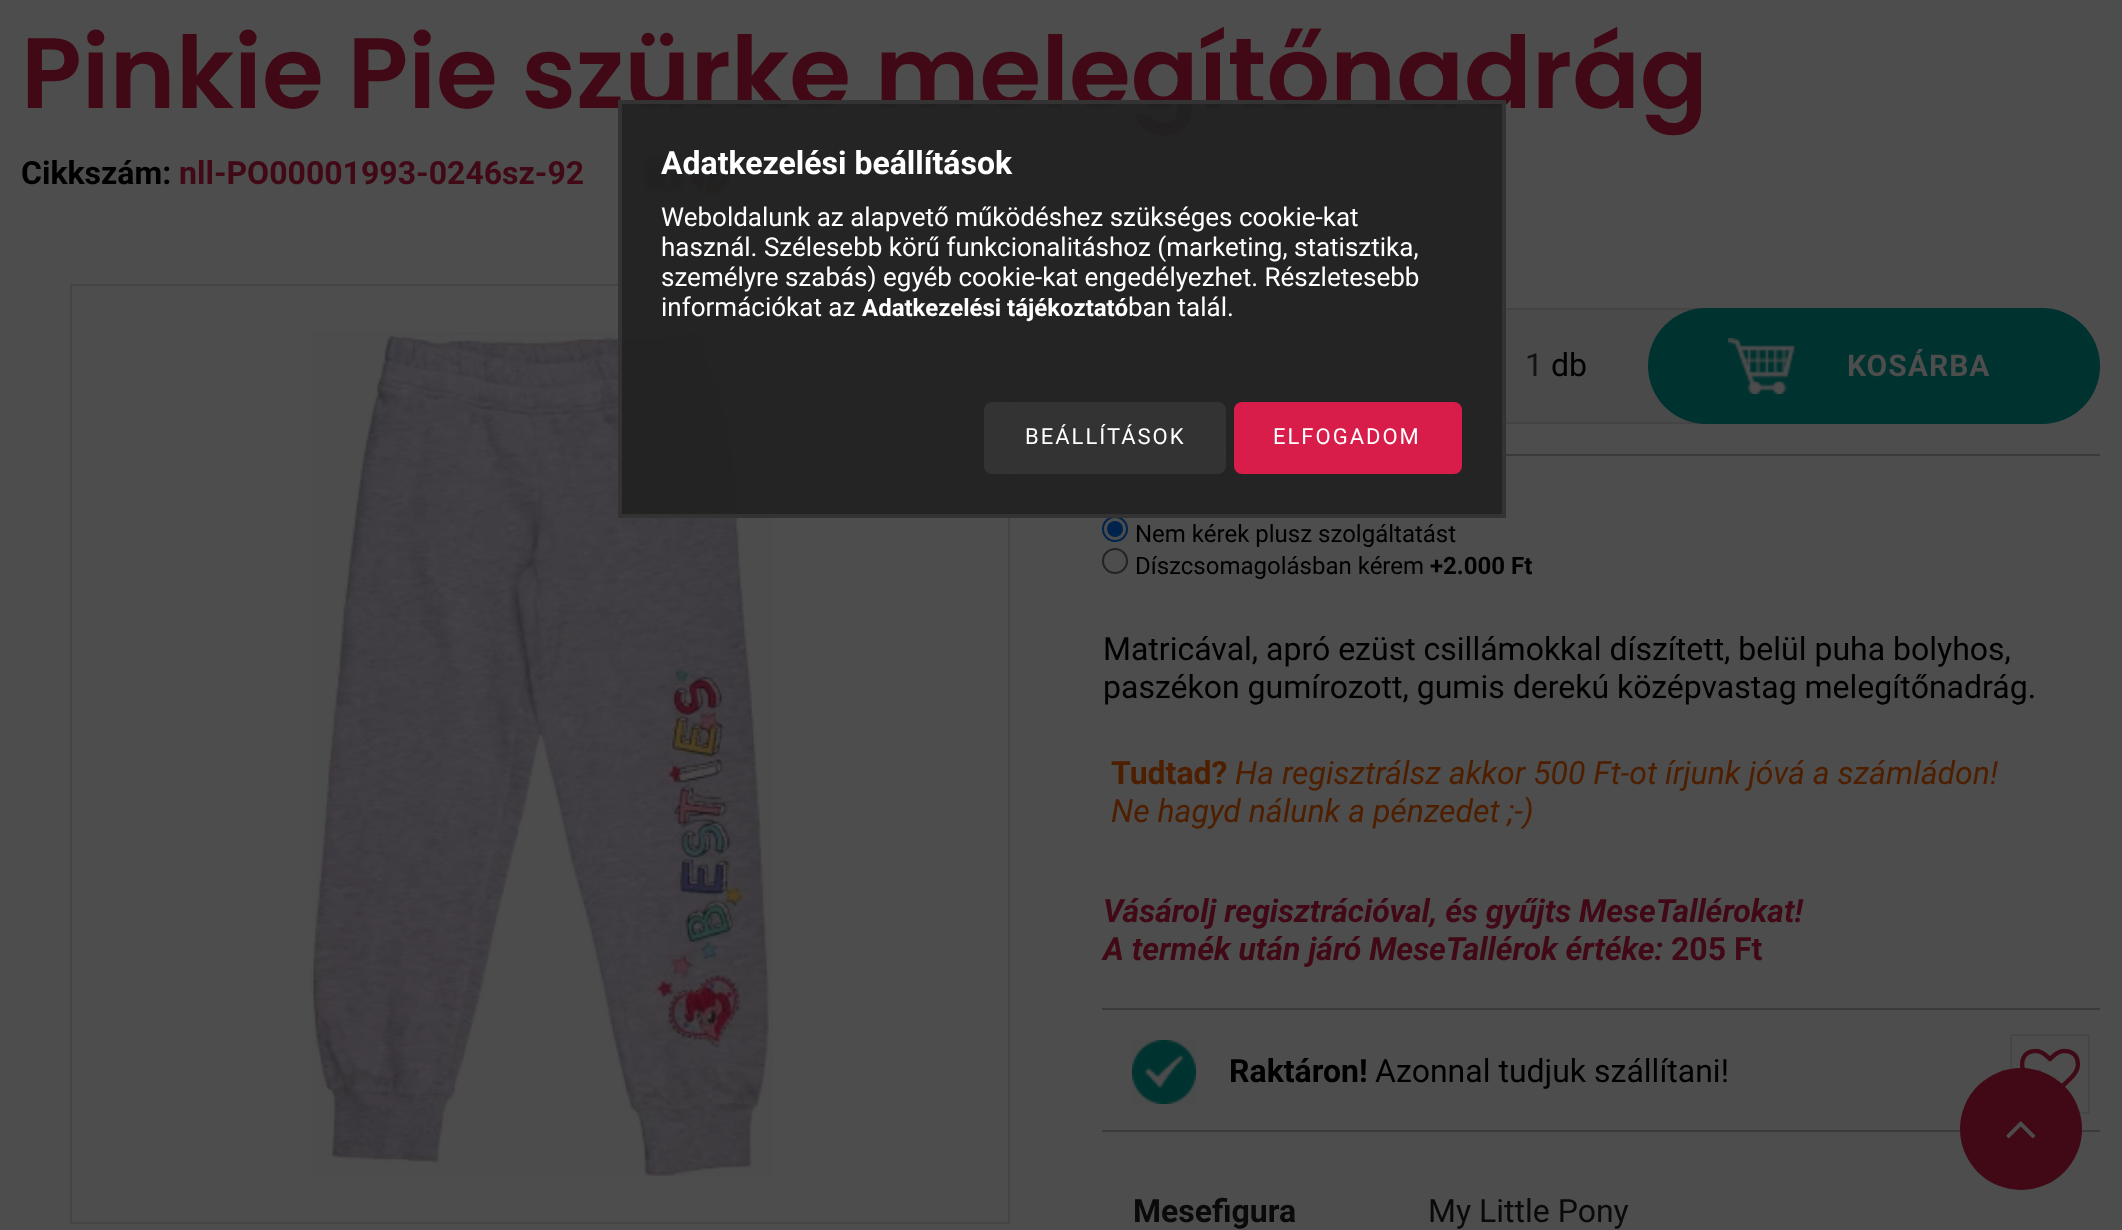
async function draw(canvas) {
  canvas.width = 2122;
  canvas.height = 1230;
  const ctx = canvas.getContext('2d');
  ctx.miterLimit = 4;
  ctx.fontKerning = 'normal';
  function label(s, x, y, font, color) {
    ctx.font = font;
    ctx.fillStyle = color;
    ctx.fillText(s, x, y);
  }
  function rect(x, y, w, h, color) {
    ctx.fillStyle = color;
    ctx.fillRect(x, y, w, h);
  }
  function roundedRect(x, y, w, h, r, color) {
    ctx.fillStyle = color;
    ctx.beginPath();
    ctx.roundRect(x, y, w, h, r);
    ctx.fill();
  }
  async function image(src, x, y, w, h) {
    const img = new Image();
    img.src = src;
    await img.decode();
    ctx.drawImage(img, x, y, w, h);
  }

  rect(0, 0, 2122, 1230, '#4d4d4d');
  label('Pinkie Pie szürke melegítőnadrág', 21, 108, '600 100px Poppins', '#410916');
  label('Cikkszám:', 21, 184, 'bold 32px Roboto', '#010000');
  label('nll-PO00001993-0246sz-92', 179, 184, 'bold 32px Roboto', '#410916');
  await image('assets/img1.png', 644, 154, 40, 40);
  await image('assets/img2.png', 690, 154, 40, 40);
  ctx.strokeStyle = '#444';
  ctx.lineWidth = 2;
  ctx.strokeRect(71, 285, 938, 938);
  await image('assets/img3.png', 310, 332, 463, 844);
  rect(1226, 454, 874, 2, '#3a3a3a');
  rect(1462, 310, 229, 112, '#4a4a4a');
  ctx.strokeRect(1461, 309, 242, 114);
  label('1', 1525, 376, '32px Roboto', '#131313');
  label('db', 1551, 376, '32px Roboto', '#010000');
  roundedRect(1648, 308, 452, 116, 58, '#00322f');
  await image('assets/img4.png', 1728, 338, 68, 56);
  ctx.letterSpacing = '1px';
  label('KOSÁRBA', 1847, 376, 'bold 30px Roboto', '#4d4d4d');
  ctx.beginPath();
  ctx.arc(1115, 529, 12, 0, 2 * Math.PI);
  ctx.strokeStyle = '#00234d';
  ctx.stroke();
  ctx.fillStyle = '#00234d';
  ctx.beginPath();
  ctx.arc(1115, 529, 8, 0, 2 * Math.PI);
  ctx.fill();
  ctx.letterSpacing = '0px';
  label('Nem kérek plusz szolgáltatást', 1135, 542, '24px Roboto', '#010000');
  ctx.beginPath();
  ctx.arc(1115, 561, 12, 0, 2 * Math.PI);
  ctx.strokeStyle = '#232323';
  ctx.stroke();
  label('Díszcsomagolásban kérem', 1135, 574, '24px Roboto', '#010000');
  label('+2.000 Ft', 1430, 574, 'bold 24px Roboto', '#010000');
  label('Matricával, apró ezüst csillámokkal díszített, belül puha bolyhos,', 1103, 660, '32px Roboto', '#010000');
  label('paszékon gumírozott, gumis derekú középvastag melegítőnadrág.', 1103, 698, '32px Roboto', '#010000');
  label('Tudtad?', 1111, 784, 'bold 32px Roboto', '#4d1f00');
  label('Ha regisztrálsz akkor 500 Ft-ot írjunk jóvá a számládon!', 1235, 784, 'italic 32px Roboto', '#4d1f00');
  label('Ne hagyd nálunk a pénzedet ;-)', 1111, 822, 'italic 32px Roboto', '#4d1f00');
  label('Vásárolj regisztrációval, és gyűjts MeseTallérokat!', 1103, 922, 'italic bold 32px Roboto', '#410916');
  label('A termék után járó MeseTallérok értéke:', 1103, 960, 'italic bold 32px Roboto', '#410916');
  label('205 Ft', 1671, 960, 'bold 32px Roboto', '#410916');
  rect(1102, 1008, 998, 2, '#3a3a3a');
  rect(1102, 1130, 998, 2, '#3a3a3a');
  await image('assets/img5.png', 1132, 1040, 64, 64);
  label('Raktáron!', 1229, 1082, 'bold 32px Roboto', '#010000');
  label('Azonnal tudjuk szállítani!', 1375, 1082, '32px Roboto', '#010000');
  ctx.strokeStyle = '#464646';
  ctx.strokeRect(2011, 1035, 78, 78);
  await image('assets/img6.png', 2020, 1048, 60, 39);
  label('Mesefigura', 1133, 1222, 'bold 32px Roboto', '#0a0a0a');
  label('My Little Pony', 1428, 1222, '32px Roboto', '#0a0a0a');
  ctx.fillStyle = '#410916';
  ctx.beginPath();
  ctx.arc(2021, 1129, 61, 0, 2 * Math.PI);
  ctx.fill();
  await image('assets/img7.png', 2006, 1121, 30, 18);
  ctx.fillStyle = '#222222f2';
  ctx.beginPath();
  ctx.rect(620, 102, 884, 414);
  ctx.fill();
  ctx.strokeStyle = '#333';
  ctx.lineWidth = 4;
  ctx.stroke();
  label('Adatkezelési beállítások', 661, 174, 'bold 32px Roboto', '#fff');
  label('Weboldalunk az alapvető működéshez szükséges cookie-kat', 661, 226, '26px Roboto', '#fff');
  label('használ. Szélesebb körű funkcionalitáshoz (marketing, statisztika,', 661, 256, '26px Roboto', '#fff');
  label('személyre szabás) egyéb cookie-kat engedélyezhet. Részletesebb', 661, 286, '26px Roboto', '#fff');
  label('információkat az', 661, 316, '26px Roboto', '#fff');
  label('Adatkezelési tájékoztató', 862, 316, 'bold 24px Roboto', '#fff');
  label('ban talál.', 1128, 316, '26px Roboto', '#fff');
  roundedRect(984, 402, 242, 72, 8, '#333');
  ctx.letterSpacing = '2px';
  label('BEÁLLÍTÁSOK', 1025, 444, '22px Roboto', '#fff');
  roundedRect(1234, 402, 228, 72, 8, '#d81d4a');
  label('ELFOGADOM', 1273, 444, '22px Roboto', '#fff');
}

draw(document.querySelector('canvas'));
